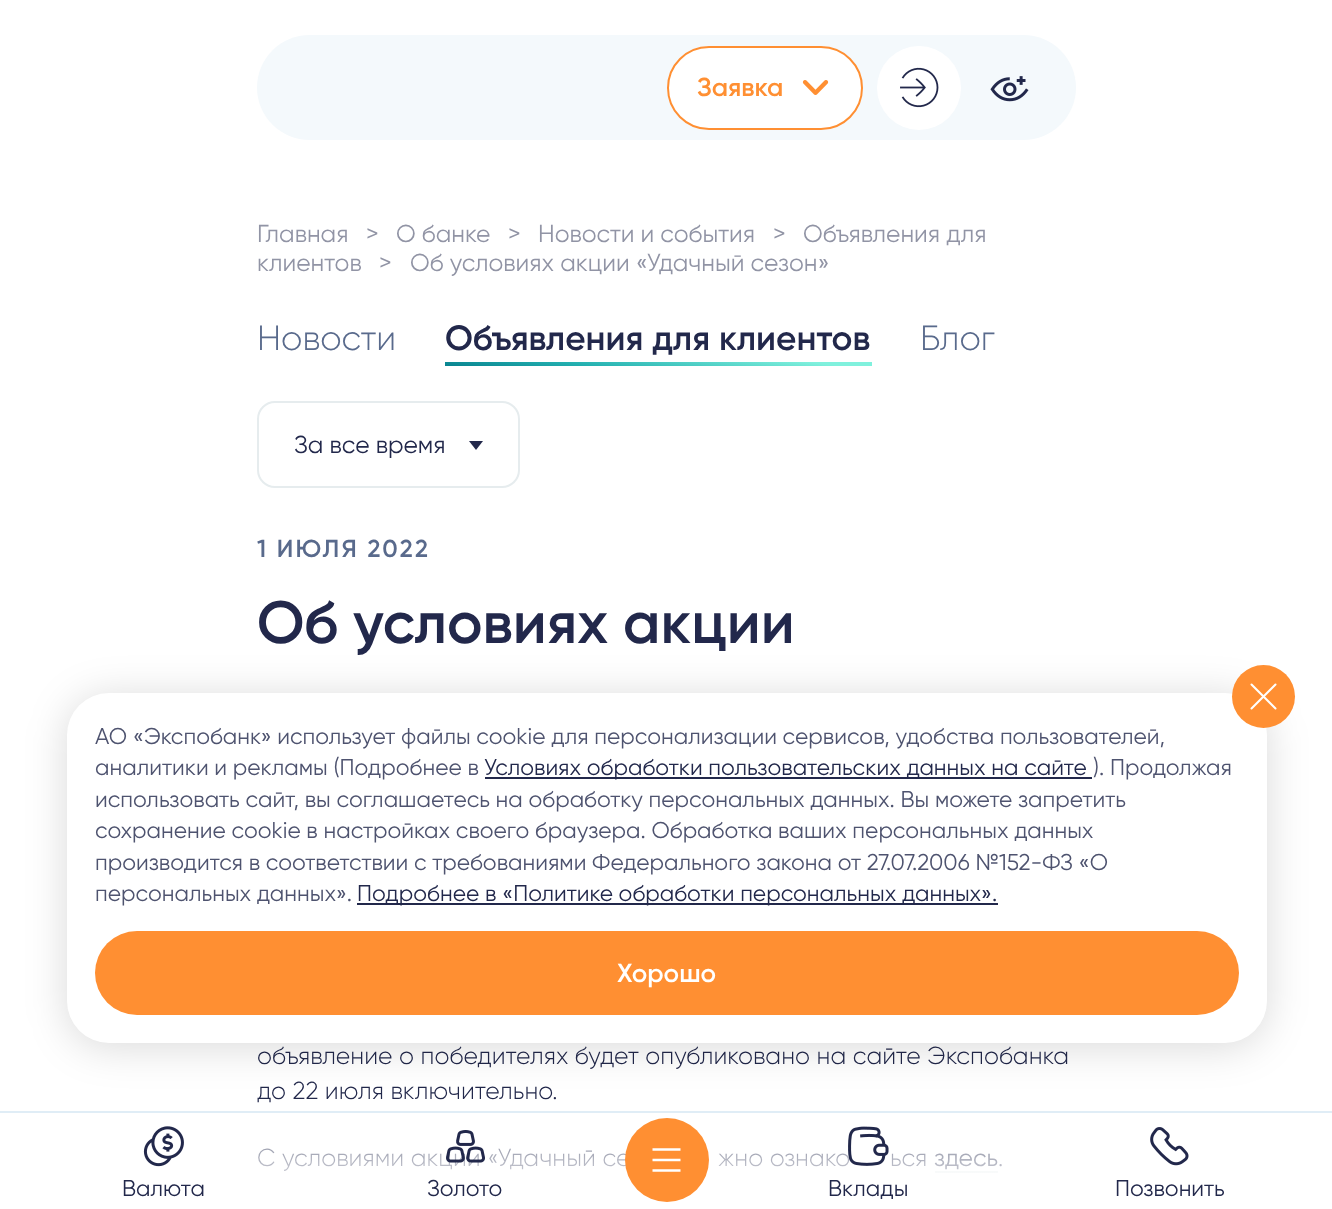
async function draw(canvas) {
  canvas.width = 1332;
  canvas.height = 1209;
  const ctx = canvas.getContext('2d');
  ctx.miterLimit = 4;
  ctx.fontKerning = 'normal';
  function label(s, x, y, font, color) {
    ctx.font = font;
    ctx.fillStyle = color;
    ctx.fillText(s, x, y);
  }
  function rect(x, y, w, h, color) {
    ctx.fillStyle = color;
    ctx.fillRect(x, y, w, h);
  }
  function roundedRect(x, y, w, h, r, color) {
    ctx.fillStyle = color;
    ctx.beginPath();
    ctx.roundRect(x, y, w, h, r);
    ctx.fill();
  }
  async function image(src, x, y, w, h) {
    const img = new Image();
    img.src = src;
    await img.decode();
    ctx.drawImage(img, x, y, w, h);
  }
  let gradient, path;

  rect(0, 0, 1332, 1209, '#fff');
  roundedRect(257, 35, 819, 105, 52.5, '#f4f9fc');
  ctx.fillStyle = '#fff';
  ctx.beginPath();
  ctx.roundRect(668, 47, 194, 82, 41);
  ctx.fill();
  ctx.strokeStyle = '#ff8f32';
  ctx.lineWidth = 2;
  ctx.stroke();
  label('Заявка', 697, 96, '600 26px Gilroy', '#ff8f32');
  await image('assets/img1.png', 802, 80, 27, 15);
  ctx.fillStyle = '#fff';
  ctx.beginPath();
  ctx.arc(919, 88, 42, 0, 2 * Math.PI);
  ctx.fill();
  await image('assets/img2.png', 900, 67, 39, 41);
  await image('assets/img3.png', 990, 76, 39, 26);
  label('Главная', 257, 242, '24.5px Gilroy', '#9194a5');
  label('>', 366, 242, '24.5px Gilroy', '#9194a5');
  label('О банке', 396, 242, '24.5px Gilroy', '#9194a5');
  label('>', 508, 242, '24.5px Gilroy', '#9194a5');
  label('Новости и события', 538, 242, '24.5px Gilroy', '#9194a5');
  label('>', 773, 242, '24.5px Gilroy', '#9194a5');
  label('Объявления для', 803, 242, '24.5px Gilroy', '#9194a5');
  label('клиентов', 257, 271, '24.5px Gilroy', '#9194a5');
  label('>', 379, 271, '24.5px Gilroy', '#9194a5');
  label('Об условиях акции «Удачный сезон»', 410, 271, '24.5px Gilroy', '#9194a5');
  label('Новости', 257, 350, '300 35px Gilroy', '#596a8c');
  label('Объявления для клиентов', 445, 350, '600 35px Gilroy', '#22284b');
  gradient = ctx.createLinearGradient(654, 395, 662, 335);
  gradient.addColorStop(0, '#067f8c');
  gradient.addColorStop(0.34, '#23b0b0');
  gradient.addColorStop(0.88, '#80f1dd');
  ctx.fillStyle = gradient;
  ctx.fillRect(445, 362, 427, 4);
  label('Блог', 920, 350, '300 35px Gilroy', '#596a8c');
  ctx.beginPath();
  ctx.roundRect(258, 402, 261, 85, 17);
  ctx.strokeStyle = '#e6ecee';
  ctx.stroke();
  label('За все время', 294, 453, '24.5px Gilroy', '#22284b');
  path = new Path2D('M469 441H483L476 450Z');
  ctx.fill(path);
  ctx.letterSpacing = '2.25px';
  label('1 ИЮЛЯ 2022', 257, 557, '600 24.5px Gilroy', '#596a8c');
  ctx.letterSpacing = '0px';
  label('Об условиях акции', 257, 643, '600 59.5px Gilroy', '#22284b');
  label('объявление о победителях будет опубликовано на сайте Экспобанка', 257, 1064, '300 24.5px Gilroy', '#22284b');
  label('до 22 июля включительно.', 257, 1099, '300 24.5px Gilroy', '#22284b');
  label('С условиями акции «Удачный се', 257, 1166, '300 24.5px Gilroy', '#22284b');
  label('жно ознако', 718, 1166, '300 24.5px Gilroy', '#22284b');
  label('ься', 890, 1166, '300 24.5px Gilroy', '#22284b');
  label('здесь', 934, 1166, '24.5px Gilroy', '#22284b');
  rect(935, 1171, 63, 2, '#e6ecee');
  label('.', 998, 1166, '300 24.5px Gilroy', '#22284b');
  ctx.fillStyle = '#00000026';
  ctx.filter = 'blur(21px)';
  ctx.beginPath();
  ctx.roundRect(67, 697, 1200, 350, 42);
  ctx.fill();
  ctx.filter = 'none';
  roundedRect(67, 693, 1200, 350, 42, '#fff');
  ctx.fillStyle = '#ff8f32';
  ctx.beginPath();
  ctx.arc(1263.5, 696.5, 31.5, 0, 2 * Math.PI);
  ctx.fill();
  path = new Path2D('M1275.5 708.5L1251.5 684.5M1251.5 708.5L1275.5 684.5');
  ctx.strokeStyle = '#fff';
  ctx.lineWidth = 2.1;
  ctx.lineCap = 'round';
  ctx.stroke(path);
  label('АО «Экспобанк» использует файлы cookie для персонализации сервисов, удобства пользователей,', 95, 744, '22.75px Gilroy', '#4e536f');
  label('аналитики и рекламы (Подробнее в', 95, 775, '22.75px Gilroy', '#4e536f');
  rect(485, 777, 607, 2, '#22284b');
  label('Условиях обработки пользовательских данных на сайте', 484, 775, '22.75px Gilroy', '#22284b');
  label('). Продолжая', 1093, 775, '22.75px Gilroy', '#4e536f');
  label('использовать сайт, вы соглашаетесь на обработку персональных данных. Вы можете запретить', 95, 807, '22.75px Gilroy', '#4e536f');
  label('сохранение cookie в настройках своего браузера. Обработка ваших персональных данных', 95, 838, '22.75px Gilroy', '#4e536f');
  label('производится в соответствии с требованиями Федерального закона от 27.07.2006 №152-ФЗ «О', 95, 870, '22.75px Gilroy', '#4e536f');
  label('персональных данных».', 95, 901, '22.75px Gilroy', '#4e536f');
  rect(357, 903, 641, 2, '#22284b');
  label('Подробнее в «Политике обработки персональных данных».', 357, 901, '22.75px Gilroy', '#22284b');
  roundedRect(95, 931, 1144, 84, 42, '#ff8f32');
  label('Хорошо', 617, 982, '600 26px Gilroy', '#fff');
  gradient = ctx.createLinearGradient(667, 1111, 667, 1209);
  gradient.addColorStop(0, '#ffffff4d');
  gradient.addColorStop(1, '#fff');
  ctx.fillStyle = gradient;
  ctx.fillRect(258, 1148, 744, 25);
  rect(0, 1111, 1332, 2, '#e0edf6');
  await image('assets/img4.png', 143, 1126, 41, 41);
  label('Валюта', 122, 1196, '22.75px Gilroy', '#22284b');
  await image('assets/img5.png', 446, 1130, 39, 33);
  label('Золото', 427, 1196, '22.75px Gilroy', '#22284b');
  ctx.fillStyle = '#ff8f32';
  ctx.beginPath();
  ctx.arc(667, 1160, 42, 0, 2 * Math.PI);
  ctx.fill();
  path = new Path2D('M652.5 1149.5H680.5M652.5 1160H680.5M652.5 1170.5H680.5');
  ctx.lineWidth = 2.6;
  ctx.lineCap = 'butt';
  ctx.stroke(path);
  await image('assets/img6.png', 848, 1126, 41, 40);
  label('Вклады', 828, 1196, '22.75px Gilroy', '#22284b');
  await image('assets/img7.png', 1150, 1127, 39, 39);
  label('Позвонить', 1115, 1196, '22.75px Gilroy', '#22284b');
}

draw(document.querySelector('canvas'));
